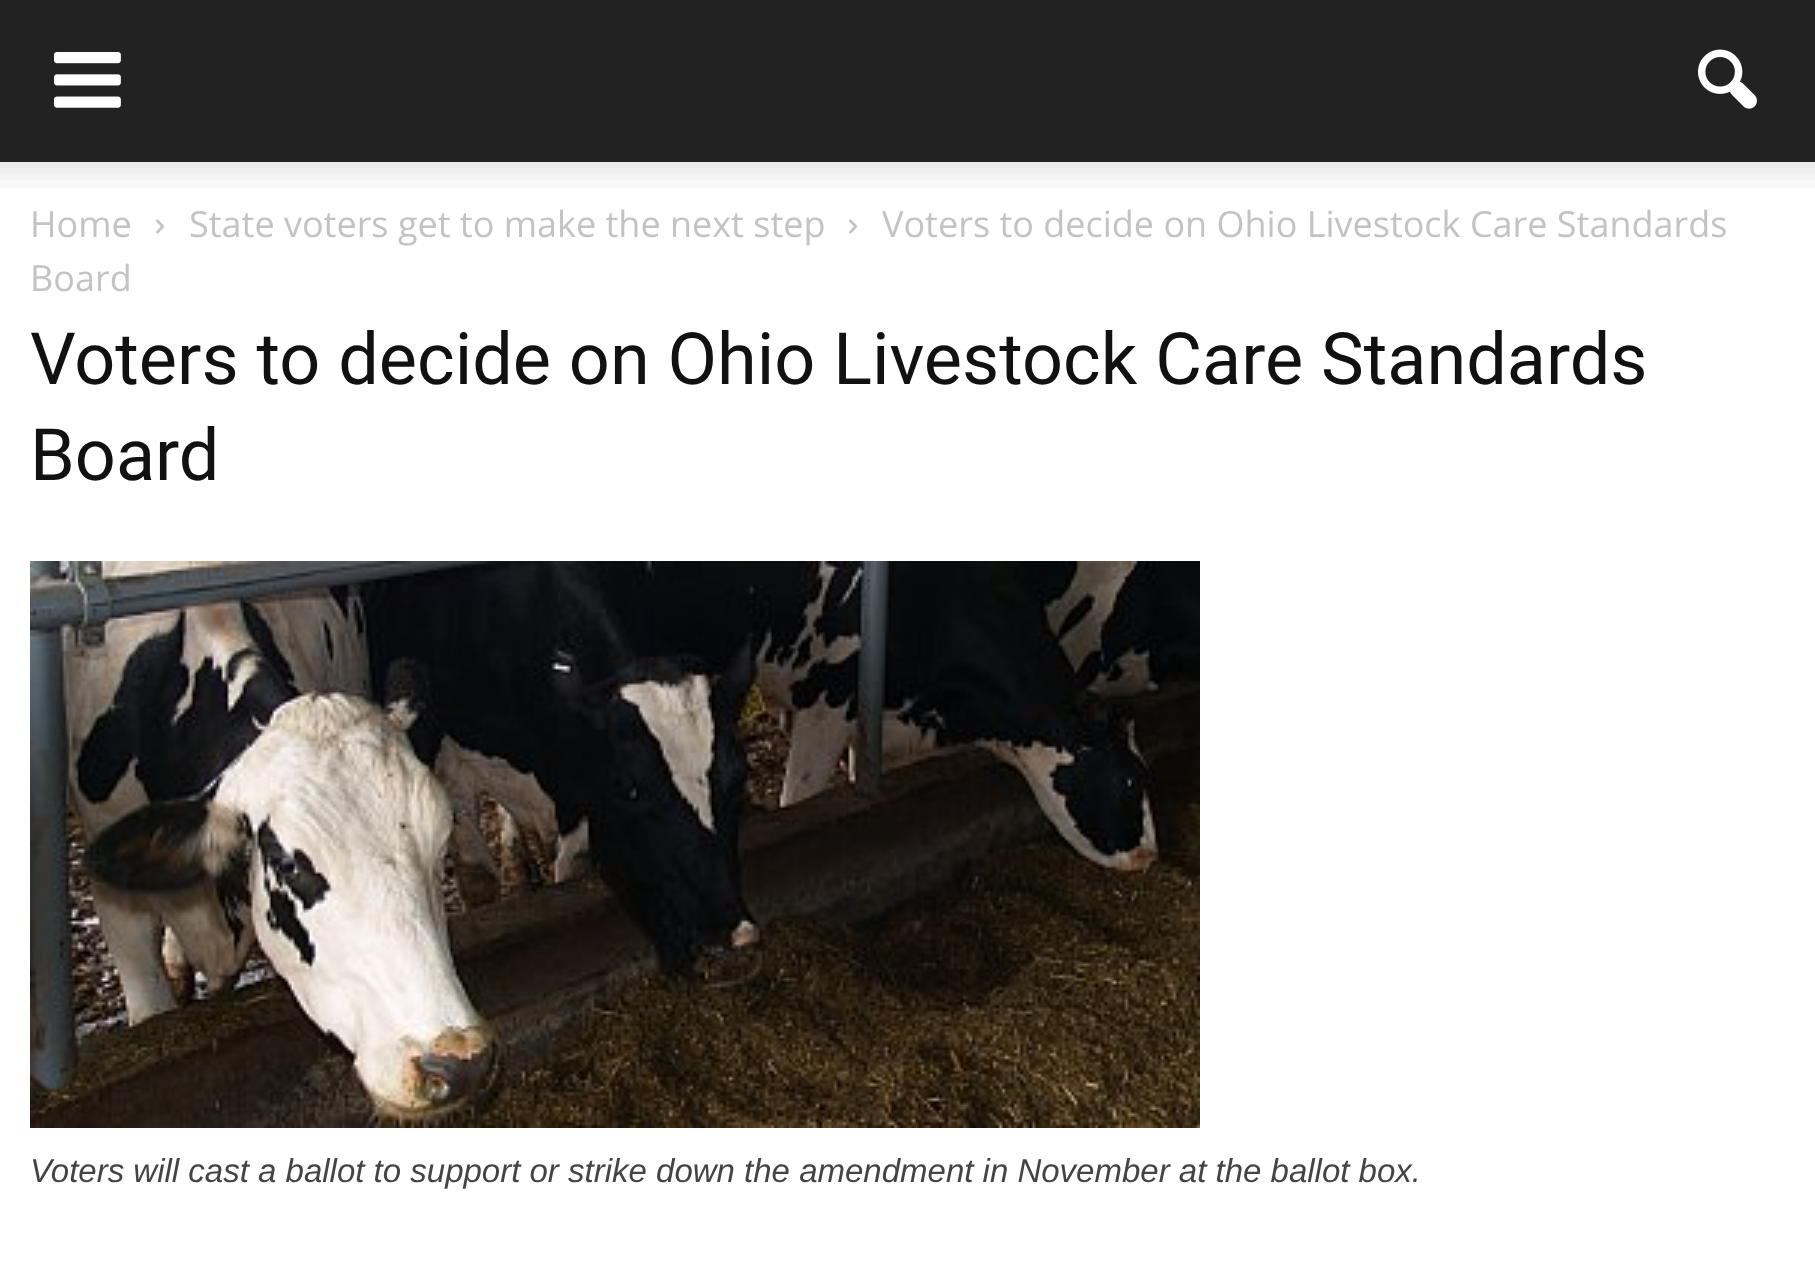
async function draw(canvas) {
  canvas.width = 1815;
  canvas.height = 1261;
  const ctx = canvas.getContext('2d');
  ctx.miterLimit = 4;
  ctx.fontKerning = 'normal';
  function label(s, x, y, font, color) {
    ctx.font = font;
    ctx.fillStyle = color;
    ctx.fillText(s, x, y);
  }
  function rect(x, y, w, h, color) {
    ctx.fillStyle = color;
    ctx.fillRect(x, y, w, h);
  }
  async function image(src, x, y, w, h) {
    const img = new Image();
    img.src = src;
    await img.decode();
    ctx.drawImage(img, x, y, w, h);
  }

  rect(0, 0, 1815, 1261, '#fff');
  rect(0, 0, 1815, 162, '#222');
  await image('assets/img1.png', 54, 52, 67, 56);
  await image('assets/img2.png', 1698, 49, 59, 60);
  await image('assets/img3.png', 0, 162, 1815, 26);
  label('Home', 30, 237, '36px Open Sans', '#c3c3c3');
  await image('assets/img4.png', 156, 219, 9, 15);
  label('State voters get to make the next step', 189, 237, '36px Open Sans', '#c3c3c3');
  await image('assets/img4.png', 849, 219, 9, 15);
  label('Voters to decide on Ohio Livestock Care Standards', 882, 237, '36px Open Sans', '#c3c3c3');
  label('Board', 30, 291, '36px Open Sans', '#c3c3c3');
  label('Voters to decide on Ohio Livestock Care Standards', 30, 384, '72px Roboto', '#111');
  label('Board', 30, 480, '72px Roboto', '#111');
  await image('assets/img5.png', 30, 561, 1170, 567);
  label('Voters will cast a ballot to support or strike down the amendment in November at the ballot box.', 30, 1182, 'italic 33px Liberation Sans', '#444');
}

draw(document.querySelector('canvas'));
